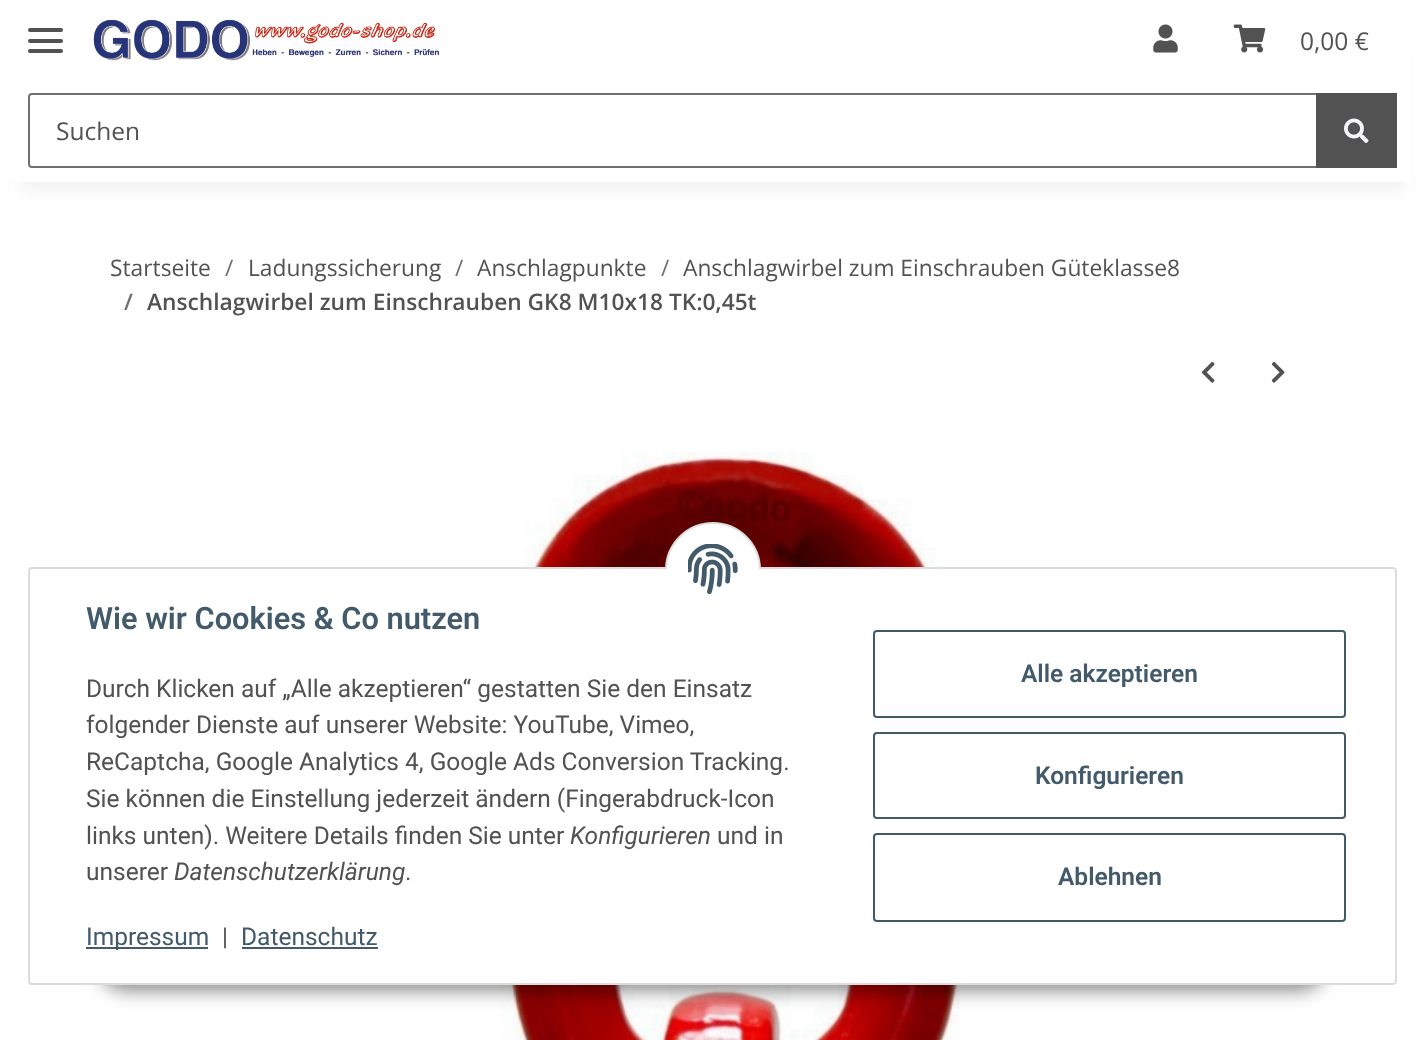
async function draw(canvas) {
  canvas.width = 1423;
  canvas.height = 1040;
  const ctx = canvas.getContext('2d');
  ctx.miterLimit = 4;
  ctx.fontKerning = 'normal';
  function label(s, x, y, font, color) {
    ctx.font = font;
    ctx.fillStyle = color;
    ctx.fillText(s, x, y);
  }
  function rect(x, y, w, h, color) {
    ctx.fillStyle = color;
    ctx.fillRect(x, y, w, h);
  }
  function roundedRect(x, y, w, h, r, color) {
    ctx.fillStyle = color;
    ctx.beginPath();
    ctx.roundRect(x, y, w, h, r);
    ctx.fill();
  }
  async function image(src, x, y, w, h) {
    const img = new Image();
    img.src = src;
    await img.decode();
    ctx.drawImage(img, x, y, w, h);
  }

  rect(0, 0, 1423, 1040, '#fff');
  ctx.fillStyle = '#0000000f';
  ctx.filter = 'blur(8px)';
  ctx.beginPath();
  ctx.rect(21, 49, 1383, 140);
  ctx.fill();
  ctx.filter = 'none';
  rect(13, 41, 1399, 141, '#fff');
  roundedRect(28, 39, 35, 4, 2, '#525252');
  roundedRect(28, 28, 35, 4, 2, '#525252');
  roundedRect(28, 49, 35, 4, 2, '#525252');
  await image('assets/img1.png', 93, 19, 346, 42);
  await image('assets/img2.png', 1153, 24, 25, 29);
  await image('assets/img3.png', 1233, 24, 33, 29);
  label('0,00 €', 1300, 50, '24.5px Open Sans', '#525252');
  ctx.beginPath();
  ctx.roundRect(29, 94, 1288, 73, [3, 0, 0, 3]);
  ctx.strokeStyle = '#707070';
  ctx.lineWidth = 2;
  ctx.stroke();
  label('Suchen', 56, 140, '24.5px Open Sans', '#525252');
  rect(1316, 93, 81, 75, '#525252');
  await image('assets/img4.png', 1344, 118, 25, 25);
  label('Startseite', 110, 276, '22.75px Open Sans', '#525252');
  label('/', 225, 276, '22.75px Open Sans', '#707070');
  label('Ladungssicherung', 248, 276, '22.75px Open Sans', '#525252');
  label('/', 455, 276, '22.75px Open Sans', '#707070');
  label('Anschlagpunkte', 477, 276, '22.75px Open Sans', '#525252');
  label('/', 661, 276, '22.75px Open Sans', '#707070');
  label('Anschlagwirbel zum Einschrauben Güteklasse8', 683, 276, '22.75px Open Sans', '#525252');
  label('/', 124, 310, '600 22.75px Open Sans', '#707070');
  label('Anschlagwirbel zum Einschrauben GK8 M10x18 TK:0,45t', 147, 310, '600 22.75px Open Sans', '#525252');
  await image('assets/img5.png', 1201, 361, 14, 22);
  await image('assets/img6.png', 1271, 361, 14, 22);
  await image('assets/img7.png', 499, 452, 472, 588);
  ctx.fillStyle = '#00000073';
  ctx.filter = 'blur(9px)';
  ctx.beginPath();
  ctx.roundRect(98, 935, 1229, 56, 28);
  ctx.fill();
  ctx.filter = 'none';
  ctx.fillStyle = '#fff';
  ctx.beginPath();
  ctx.roundRect(29, 568, 1367, 416, 3);
  ctx.fill();
  ctx.strokeStyle = '#ddd';
  ctx.stroke();
  ctx.beginPath();
  ctx.arc(713, 570, 47, 0, 2 * Math.PI);
  ctx.fill();
  ctx.stroke();
  rect(665, 569, 96, 49, '#fff');
  await image('assets/img8.png', 688, 544, 50, 51);
  label('Wie wir Cookies & Co nutzen', 86, 629, '600 30.75px Roboto', '#435a6b');
  label('Durch Klicken auf „Alle akzeptieren“ gestatten Sie den Einsatz', 86, 697, '24.5px Roboto', '#525252');
  label('folgender Dienste auf unserer Website: YouTube, Vimeo,', 86, 733, '24.5px Roboto', '#525252');
  label('ReCaptcha, Google Analytics 4, Google Ads Conversion Tracking.', 86, 770, '24.5px Roboto', '#525252');
  label('Sie können die Einstellung jederzeit ändern (Fingerabdruck-Icon', 86, 807, '24.5px Roboto', '#525252');
  label('links unten). Weitere Details finden Sie unter', 86, 844, '24.5px Roboto', '#525252');
  label('Konfigurieren', 570, 844, 'italic 24.5px Roboto', '#525252');
  label('und in', 717, 844, '24.5px Roboto', '#525252');
  label('unserer', 86, 880, '24.5px Roboto', '#525252');
  label('Datenschutzerklärung', 174, 880, 'italic 24.5px Roboto', '#525252');
  label('.', 405, 880, '24.5px Roboto', '#525252');
  rect(86, 947, 122, 2, '#435a6b');
  label('Impressum', 86, 945, '24.5px Roboto', '#435a6b');
  label('|', 222, 945, '24.5px Roboto', '#525252');
  label('Datenschutz', 241, 945, '24.5px Roboto', '#435a6b');
  rect(242, 947, 136, 2, '#435a6b');
  ctx.beginPath();
  ctx.roundRect(874, 631, 471, 86, 3);
  ctx.strokeStyle = '#435a6b';
  ctx.stroke();
  label('Alle akzeptieren', 1021, 682, '600 24.5px Roboto', '#435a6b');
  ctx.beginPath();
  ctx.roundRect(874, 733, 471, 85, 3);
  ctx.stroke();
  label('Konfigurieren', 1035, 784, '600 24.5px Roboto', '#435a6b');
  ctx.beginPath();
  ctx.roundRect(874, 834, 471, 87, 3);
  ctx.stroke();
  label('Ablehnen', 1058, 885, '600 24.5px Roboto', '#435a6b');
}

draw(document.querySelector('canvas'));
